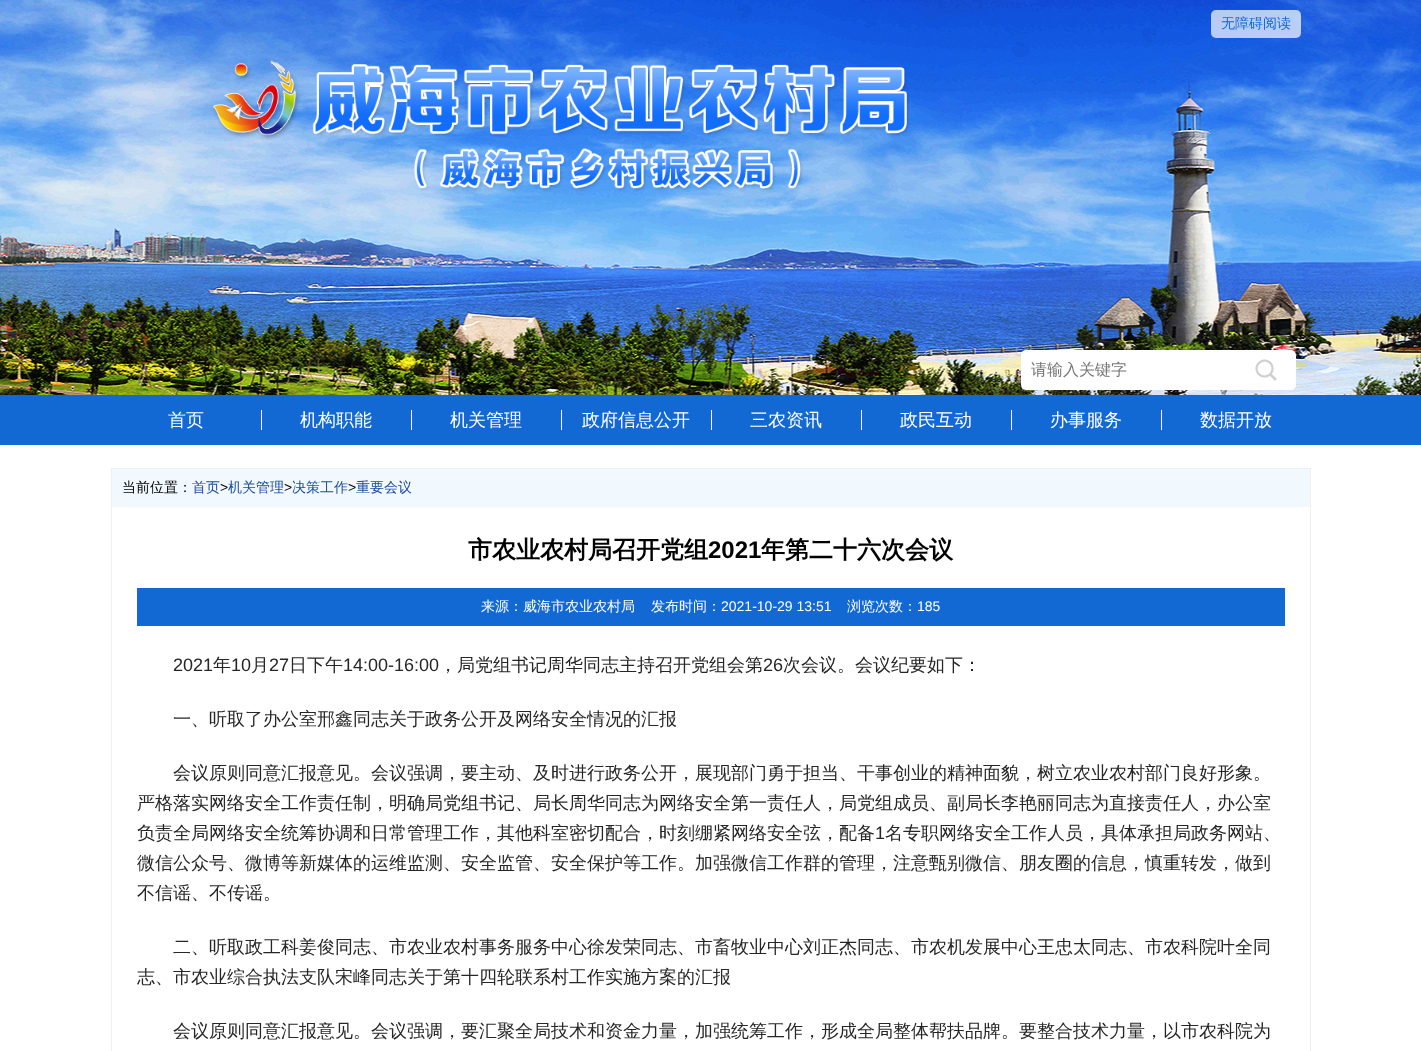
async function draw(canvas) {
  canvas.width = 1421;
  canvas.height = 1051;
  const ctx = canvas.getContext('2d');
  ctx.miterLimit = 4;
  ctx.fontKerning = 'normal';
  function label(s, x, y, font, color) {
    ctx.font = font;
    ctx.fillStyle = color;
    ctx.fillText(s, x, y);
  }
  function rect(x, y, w, h, color) {
    ctx.fillStyle = color;
    ctx.fillRect(x, y, w, h);
  }
  function roundedRect(x, y, w, h, r, color) {
    ctx.fillStyle = color;
    ctx.beginPath();
    ctx.roundRect(x, y, w, h, r);
    ctx.fill();
  }
  async function image(src, x, y, w, h) {
    const img = new Image();
    img.src = src;
    await img.decode();
    ctx.drawImage(img, x, y, w, h);
  }

  rect(0, 0, 1421, 1051, '#fff');
  await image('assets/img1.png', 0, 0, 1421, 395);
  await image('assets/img2.png', 212, 60, 698, 132);
  roundedRect(1211, 10, 90, 28, 5, '#ffffffb3');
  label('无障碍阅读', 1221, 28, '500 14px WenQuanYi Zen Hei', '#1269d3');
  roundedRect(1021, 350, 275, 40, 5, '#fff');
  label('请输入关键字', 1031, 375, '500 16px WenQuanYi Zen Hei', '#757575');
  await image('assets/img3.png', 1255, 359, 22, 22);
  rect(0, 395, 1421, 50, '#1269d3');
  rect(261, 410, 1, 20, '#fff');
  label('首页', 168, 426, '500 18px WenQuanYi Zen Hei', '#fff');
  rect(411, 410, 1, 20, '#fff');
  label('机构职能', 300, 426, '500 18px WenQuanYi Zen Hei', '#fff');
  rect(561, 410, 1, 20, '#fff');
  label('机关管理', 450, 426, '500 18px WenQuanYi Zen Hei', '#fff');
  rect(711, 410, 1, 20, '#fff');
  label('政府信息公开', 582, 426, '500 18px WenQuanYi Zen Hei', '#fff');
  rect(861, 410, 1, 20, '#fff');
  label('三农资讯', 750, 426, '500 18px WenQuanYi Zen Hei', '#fff');
  rect(1011, 410, 1, 20, '#fff');
  label('政民互动', 900, 426, '500 18px WenQuanYi Zen Hei', '#fff');
  rect(1161, 410, 1, 20, '#fff');
  label('办事服务', 1050, 426, '500 18px WenQuanYi Zen Hei', '#fff');
  label('数据开放', 1200, 426, '500 18px WenQuanYi Zen Hei', '#fff');
  ctx.strokeStyle = '#efefef';
  ctx.strokeRect(111.5, 468.5, 1199, 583);
  rect(112, 469, 1198, 38, '#f1f9ff');
  label('当前位置：', 122, 492, '500 14px WenQuanYi Zen Hei', '#000');
  label('首页', 192, 492, '500 14px WenQuanYi Zen Hei', '#1c4ca0');
  label('>', 220, 492, '14px Liberation Sans', '#000');
  label('机关管理', 228, 492, '500 14px WenQuanYi Zen Hei', '#1c4ca0');
  label('>', 284, 492, '14px Liberation Sans', '#000');
  label('决策工作', 292, 492, '500 14px WenQuanYi Zen Hei', '#1c4ca0');
  label('>', 348, 492, '14px Liberation Sans', '#000');
  label('重要会议', 356, 492, '500 14px WenQuanYi Zen Hei', '#1c4ca0');
  label('市农业农村局召开党组', 468, 558, 'bold 24px WenQuanYi Zen Hei', '#000');
  label('2021', 708, 558, 'bold 24px Liberation Sans', '#000');
  label('年第二十六次会议', 761, 558, 'bold 24px WenQuanYi Zen Hei', '#000');
  rect(137, 588, 1148, 38, '#1269d3');
  label('来源：威海市农业农村局', 481, 611, '500 14px WenQuanYi Zen Hei', '#fff');
  label('发布时间：', 651, 611, '500 14px WenQuanYi Zen Hei', '#fff');
  label('2021-10-29 13:51', 721, 611, '14px Liberation Sans', '#fff');
  label('浏览次数：', 847, 611, '500 14px WenQuanYi Zen Hei', '#fff');
  label('185', 917, 611, '14px Liberation Sans', '#fff');
  label('2021', 173, 671, '18px Liberation Sans', '#262626');
  label('年', 213, 671, '500 18px WenQuanYi Zen Hei', '#262626');
  label('10', 231, 671, '18px Liberation Sans', '#262626');
  label('月', 251, 671, '500 18px WenQuanYi Zen Hei', '#262626');
  label('27', 269, 671, '18px Liberation Sans', '#262626');
  label('日下午', 289, 671, '500 18px WenQuanYi Zen Hei', '#262626');
  label('14:00-16:00', 343, 671, '18px Liberation Sans', '#262626');
  label('，局党组书记周华同志主持召开党组会第', 439, 671, '500 18px WenQuanYi Zen Hei', '#262626');
  label('26', 763, 671, '18px Liberation Sans', '#262626');
  label('次会议。会议纪要如下：', 783, 671, '500 18px WenQuanYi Zen Hei', '#262626');
  label('一、听取了办公室邢鑫同志关于政务公开及网络安全情况的汇报', 173, 725, '500 18px WenQuanYi Zen Hei', '#262626');
  label('会议原则同意汇报意见。会议强调，要主动、及时进行政务公开，展现部门勇于担当、干事创业的精神面貌，树立农业农村部门良好形象。', 173, 779, '500 18px WenQuanYi Zen Hei', '#262626');
  label('严格落实网络安全工作责任制，明确局党组书记、局长周华同志为网络安全第一责任人，局党组成员、副局长李艳丽同志为直接责任人，办公室', 137, 809, '500 18px WenQuanYi Zen Hei', '#262626');
  label('负责全局网络安全统筹协调和日常管理工作，其他科室密切配合，时刻绷紧网络安全弦，配备', 137, 839, '500 18px WenQuanYi Zen Hei', '#262626');
  label('1', 875, 839, '18px Liberation Sans', '#262626');
  label('名专职网络安全工作人员，具体承担局政务网站、', 885, 839, '500 18px WenQuanYi Zen Hei', '#262626');
  label('微信公众号、微博等新媒体的运维监测、安全监管、安全保护等工作。加强微信工作群的管理，注意甄别微信、朋友圈的信息，慎重转发，做到', 137, 869, '500 18px WenQuanYi Zen Hei', '#262626');
  label('不信谣、不传谣。', 137, 899, '500 18px WenQuanYi Zen Hei', '#262626');
  label('二、听取政工科姜俊同志、市农业农村事务服务中心徐发荣同志、市畜牧业中心刘正杰同志、市农机发展中心王忠太同志、市农科院叶全同', 173, 953, '500 18px WenQuanYi Zen Hei', '#262626');
  label('志、市农业综合执法支队宋峰同志关于第十四轮联系村工作实施方案的汇报', 137, 983, '500 18px WenQuanYi Zen Hei', '#262626');
  label('会议原则同意汇报意见。会议强调，要汇聚全局技术和资金力量，加强统筹工作，形成全局整体帮扶品牌。要整合技术力量，以市农科院为', 173, 1037, '500 18px WenQuanYi Zen Hei', '#262626');
}

draw(document.querySelector('canvas'));
